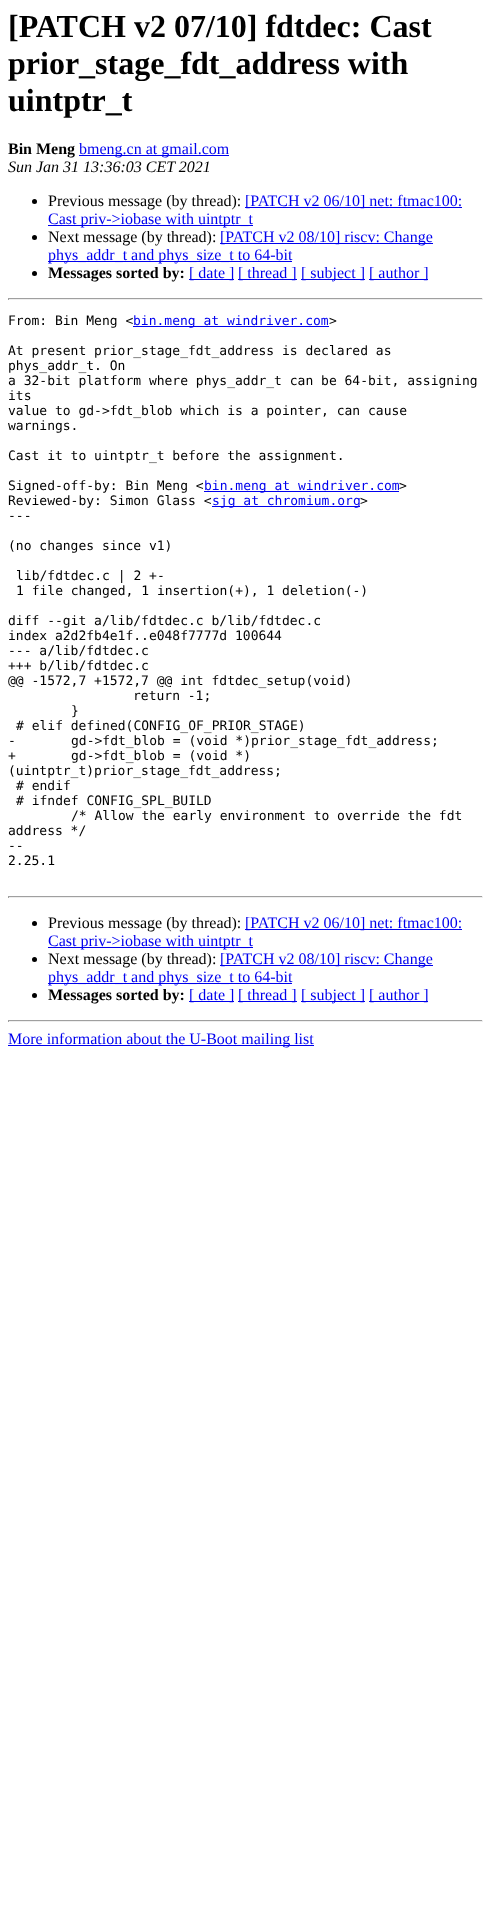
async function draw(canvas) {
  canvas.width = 491;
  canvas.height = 1918;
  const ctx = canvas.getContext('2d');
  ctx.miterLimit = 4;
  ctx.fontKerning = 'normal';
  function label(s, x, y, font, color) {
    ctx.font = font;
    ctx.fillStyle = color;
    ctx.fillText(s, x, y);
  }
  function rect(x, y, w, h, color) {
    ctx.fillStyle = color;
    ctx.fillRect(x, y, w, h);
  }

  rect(0, 0, 491, 1918, '#fff');
  label('[PATCH v2 07/10] fdtdec: Cast', 8, 37, 'bold 32px Liberation Serif', '#000');
  label('prior_stage_fdt_address with', 8, 74, 'bold 32px Liberation Serif', '#000');
  label('uintptr_t', 8, 111, 'bold 32px Liberation Serif', '#000');
  label('Bin Meng', 8, 154, 'bold 16px Liberation Serif', '#000');
  rect(79, 155, 150, 1, '#00e');
  label('bmeng.cn at gmail.com', 79, 154, '16px Liberation Serif', '#00e');
  label('Sun Jan 31 13:36:03 CET 2021', 8, 172, 'italic 16px Liberation Serif', '#000');
  ctx.beginPath();
  ctx.arc(34.5, 201.5, 2.5, 0, 2 * Math.PI);
  ctx.fill();
  label('Previous message (by thread):', 48, 206, '16px Liberation Serif', '#000');
  rect(245, 207, 217, 1, '#00e');
  label('[PATCH v2 06/10] net: ftmac100:', 245, 206, '16px Liberation Serif', '#00e');
  rect(48, 225, 205, 1, '#00e');
  label('Cast priv->iobase with uintptr_t', 48, 224, '16px Liberation Serif', '#00e');
  ctx.fillStyle = '#000';
  ctx.beginPath();
  ctx.arc(34.5, 237.5, 2.5, 0, 2 * Math.PI);
  ctx.fill();
  label('Next message (by thread):', 48, 242, '16px Liberation Serif', '#000');
  rect(220, 243, 213, 1, '#00e');
  label('[PATCH v2 08/10] riscv: Change', 220, 242, '16px Liberation Serif', '#00e');
  rect(48, 261, 244, 1, '#00e');
  label('phys_addr_t and phys_size_t to 64-bit', 48, 260, '16px Liberation Serif', '#00e');
  ctx.fillStyle = '#000';
  ctx.beginPath();
  ctx.arc(34.5, 273.5, 2.5, 0, 2 * Math.PI);
  ctx.fill();
  label('Messages sorted by:', 48, 278, 'bold 16px Liberation Serif', '#000');
  rect(189, 279, 45, 1, '#00e');
  label('[ date ]', 189, 278, '16px Liberation Serif', '#00e');
  rect(238, 279, 59, 1, '#00e');
  label('[ thread ]', 238, 278, '16px Liberation Serif', '#00e');
  rect(301, 279, 64, 1, '#00e');
  label('[ subject ]', 301, 278, '16px Liberation Serif', '#00e');
  rect(369, 279, 59, 1, '#00e');
  label('[ author ]', 369, 278, '16px Liberation Serif', '#00e');
  rect(8, 298, 475, 1, '#9f9f9f');
  rect(482, 298, 1, 2, '#eee');
  rect(8, 299, 475, 1, '#eee');
  rect(8, 298, 1, 2, '#9f9f9f');
  label('From: Bin Meng <', 8, 325, '13px DejaVu Sans Mono', '#000');
  rect(133, 326, 196, 1, '#00e');
  label('bin.meng at windriver.com', 133, 325, '13px DejaVu Sans Mono', '#00e');
  label('>', 329, 325, '13px DejaVu Sans Mono', '#000');
  label('At present prior_stage_fdt_address is declared as', 8, 355, '13px DejaVu Sans Mono', '#000');
  label('phys_addr_t. On', 8, 370, '13px DejaVu Sans Mono', '#000');
  label('a 32-bit platform where phys_addr_t can be 64-bit, assigning', 8, 385, '13px DejaVu Sans Mono', '#000');
  label('its', 8, 400, '13px DejaVu Sans Mono', '#000');
  label('value to gd->fdt_blob which is a pointer, can cause', 8, 415, '13px DejaVu Sans Mono', '#000');
  label('warnings.', 8, 430, '13px DejaVu Sans Mono', '#000');
  label('Cast it to uintptr_t before the assignment.', 8, 460, '13px DejaVu Sans Mono', '#000');
  label('Signed-off-by: Bin Meng <', 8, 490, '13px DejaVu Sans Mono', '#000');
  rect(204, 491, 195, 1, '#00e');
  label('bin.meng at windriver.com', 204, 490, '13px DejaVu Sans Mono', '#00e');
  label('>', 399, 490, '13px DejaVu Sans Mono', '#000');
  label('Reviewed-by: Simon Glass <', 8, 505, '13px DejaVu Sans Mono', '#000');
  rect(212, 506, 148, 1, '#00e');
  label('sjg at chromium.org', 212, 505, '13px DejaVu Sans Mono', '#00e');
  label('>', 360, 505, '13px DejaVu Sans Mono', '#000');
  label('---', 8, 520, '13px DejaVu Sans Mono', '#000');
  label('(no changes since v1)', 8, 550, '13px DejaVu Sans Mono', '#000');
  label('lib/fdtdec.c | 2 +-', 16, 580, '13px DejaVu Sans Mono', '#000');
  label('1 file changed, 1 insertion(+), 1 deletion(-)', 16, 595, '13px DejaVu Sans Mono', '#000');
  label('diff --git a/lib/fdtdec.c b/lib/fdtdec.c', 8, 625, '13px DejaVu Sans Mono', '#000');
  label('index a2d2fb4e1f..e048f7777d 100644', 8, 640, '13px DejaVu Sans Mono', '#000');
  label('--- a/lib/fdtdec.c', 8, 655, '13px DejaVu Sans Mono', '#000');
  label('+++ b/lib/fdtdec.c', 8, 670, '13px DejaVu Sans Mono', '#000');
  label('@@ -1572,7 +1572,7 @@ int fdtdec_setup(void)', 8, 685, '13px DejaVu Sans Mono', '#000');
  label('return -1;', 133, 700, '13px DejaVu Sans Mono', '#000');
  label('}', 71, 715, '13px DejaVu Sans Mono', '#000');
  label('# elif defined(CONFIG_OF_PRIOR_STAGE)', 16, 730, '13px DejaVu Sans Mono', '#000');
  label('-', 8, 745, '13px DejaVu Sans Mono', '#000');
  label('gd->fdt_blob = (void *)prior_stage_fdt_address;', 71, 745, '13px DejaVu Sans Mono', '#000');
  label('+', 8, 760, '13px DejaVu Sans Mono', '#000');
  label('gd->fdt_blob = (void *)', 71, 760, '13px DejaVu Sans Mono', '#000');
  label('(uintptr_t)prior_stage_fdt_address;', 8, 775, '13px DejaVu Sans Mono', '#000');
  label('# endif', 16, 790, '13px DejaVu Sans Mono', '#000');
  label('# ifndef CONFIG_SPL_BUILD', 16, 805, '13px DejaVu Sans Mono', '#000');
  label('/* Allow the early environment to override the fdt', 71, 820, '13px DejaVu Sans Mono', '#000');
  label('address */', 8, 835, '13px DejaVu Sans Mono', '#000');
  label('--', 8, 850, '13px DejaVu Sans Mono', '#000');
  label('2.25.1', 8, 865, '13px DejaVu Sans Mono', '#000');
  rect(8, 896, 475, 1, '#9f9f9f');
  rect(482, 896, 1, 2, '#eee');
  rect(8, 897, 475, 1, '#eee');
  rect(8, 896, 1, 2, '#9f9f9f');
  ctx.fillStyle = '#000';
  ctx.beginPath();
  ctx.arc(34.5, 923.5, 2.5, 0, 2 * Math.PI);
  ctx.fill();
  label('Previous message (by thread):', 48, 928, '16px Liberation Serif', '#000');
  rect(245, 929, 217, 1, '#00e');
  label('[PATCH v2 06/10] net: ftmac100:', 245, 928, '16px Liberation Serif', '#00e');
  rect(48, 947, 205, 1, '#00e');
  label('Cast priv->iobase with uintptr_t', 48, 946, '16px Liberation Serif', '#00e');
  ctx.fillStyle = '#000';
  ctx.beginPath();
  ctx.arc(34.5, 959.5, 2.5, 0, 2 * Math.PI);
  ctx.fill();
  label('Next message (by thread):', 48, 964, '16px Liberation Serif', '#000');
  rect(220, 965, 213, 1, '#00e');
  label('[PATCH v2 08/10] riscv: Change', 220, 964, '16px Liberation Serif', '#00e');
  rect(48, 983, 244, 1, '#00e');
  label('phys_addr_t and phys_size_t to 64-bit', 48, 982, '16px Liberation Serif', '#00e');
  ctx.fillStyle = '#000';
  ctx.beginPath();
  ctx.arc(34.5, 995.5, 2.5, 0, 2 * Math.PI);
  ctx.fill();
  label('Messages sorted by:', 48, 1000, 'bold 16px Liberation Serif', '#000');
  rect(189, 1001, 45, 1, '#00e');
  label('[ date ]', 189, 1000, '16px Liberation Serif', '#00e');
  rect(238, 1001, 59, 1, '#00e');
  label('[ thread ]', 238, 1000, '16px Liberation Serif', '#00e');
  rect(301, 1001, 64, 1, '#00e');
  label('[ subject ]', 301, 1000, '16px Liberation Serif', '#00e');
  rect(369, 1001, 59, 1, '#00e');
  label('[ author ]', 369, 1000, '16px Liberation Serif', '#00e');
  rect(8, 1020, 475, 1, '#9f9f9f');
  rect(482, 1020, 1, 2, '#eee');
  rect(8, 1021, 475, 1, '#eee');
  rect(8, 1020, 1, 2, '#9f9f9f');
  rect(8, 1045, 306, 1, '#00e');
  label('More information about the U-Boot mailing list', 8, 1044, '16px Liberation Serif', '#00e');
}

draw(document.querySelector('canvas'));
